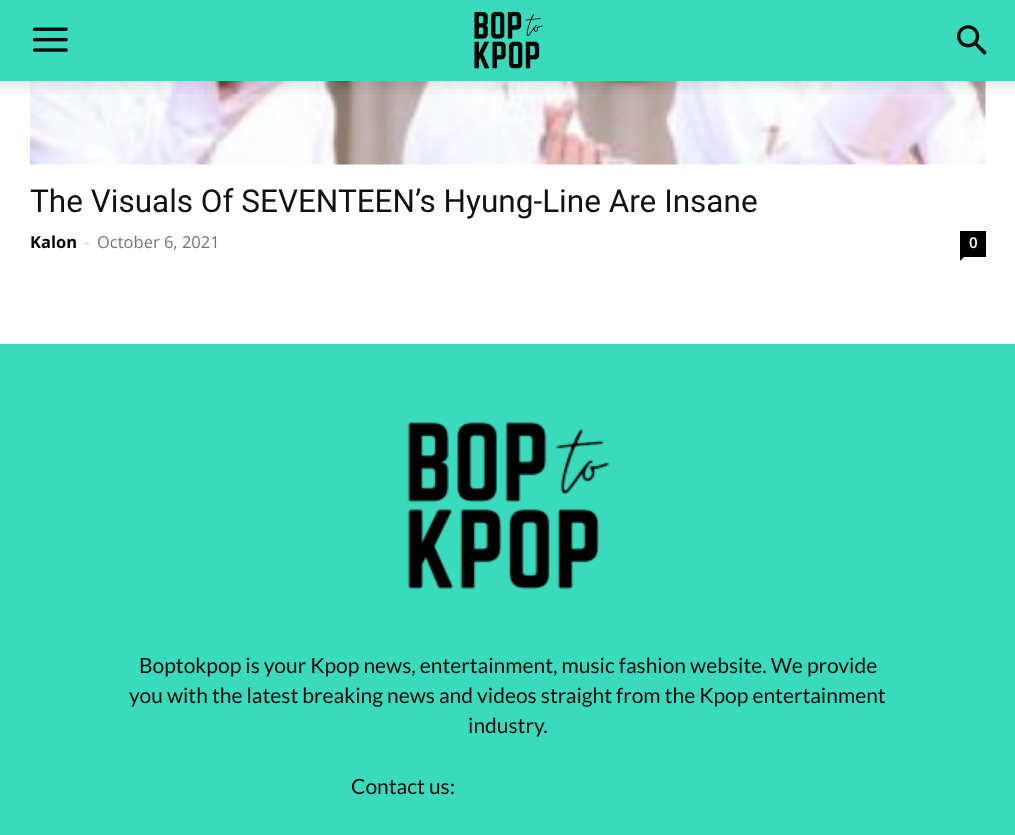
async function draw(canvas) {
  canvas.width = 1015;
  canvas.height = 835;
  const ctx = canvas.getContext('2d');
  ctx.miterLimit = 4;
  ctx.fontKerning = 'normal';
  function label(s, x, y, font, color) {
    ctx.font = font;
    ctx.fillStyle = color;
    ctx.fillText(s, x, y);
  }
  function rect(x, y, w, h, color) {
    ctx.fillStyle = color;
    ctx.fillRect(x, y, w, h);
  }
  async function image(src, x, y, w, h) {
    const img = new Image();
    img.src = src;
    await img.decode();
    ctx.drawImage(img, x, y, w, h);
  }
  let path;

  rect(0, 0, 1015, 835, '#fff');
  rect(0, 0, 1015, 81, '#3adabc');
  await image('assets/img1.png', 33, 27, 35, 25);
  await image('assets/img2.png', 474, 11, 69, 58);
  await image('assets/img3.png', 957, 25, 30, 30);
  await image('assets/img5.png', 30, 81, 956, 84);
  await image('assets/img4.png', 0, 81, 1015, 13);
  label('The Visuals Of SEVENTEEN’s Hyung-Line Are Insane', 30, 212, '31.5px Roboto', '#111');
  label('Kalon', 30, 248, 'bold 16.5px Open Sans', '#000');
  label('-', 84, 248, '16.5px Open Sans', '#ccc');
  label('October 6, 2021', 97, 248, '16.5px Open Sans', '#767676');
  rect(960, 231, 26, 26, '#000');
  label('0', 969, 248, '600 15px Open Sans', '#fff');
  ctx.fillStyle = '#000';
  path = new Path2D('M960 256.5H964.5L960 261Z');
  ctx.fill(path);
  rect(0, 344, 1015, 491, '#3adabc');
  await image('assets/img6.png', 407, 422, 203, 168);
  label('Boptokpop is your Kpop news, entertainment, music fashion website. We provide', 139, 673, '21px Lato', '#0a0a0a');
  label('you with the latest breaking news and videos straight from the Kpop entertainment', 129, 703, '21px Lato', '#0a0a0a');
  label('industry.', 468, 733, '21px Lato', '#0a0a0a');
  label('Contact us:', 351, 794, '21px Lato', '#0a0a0a');
}

draw(document.querySelector('canvas'));
